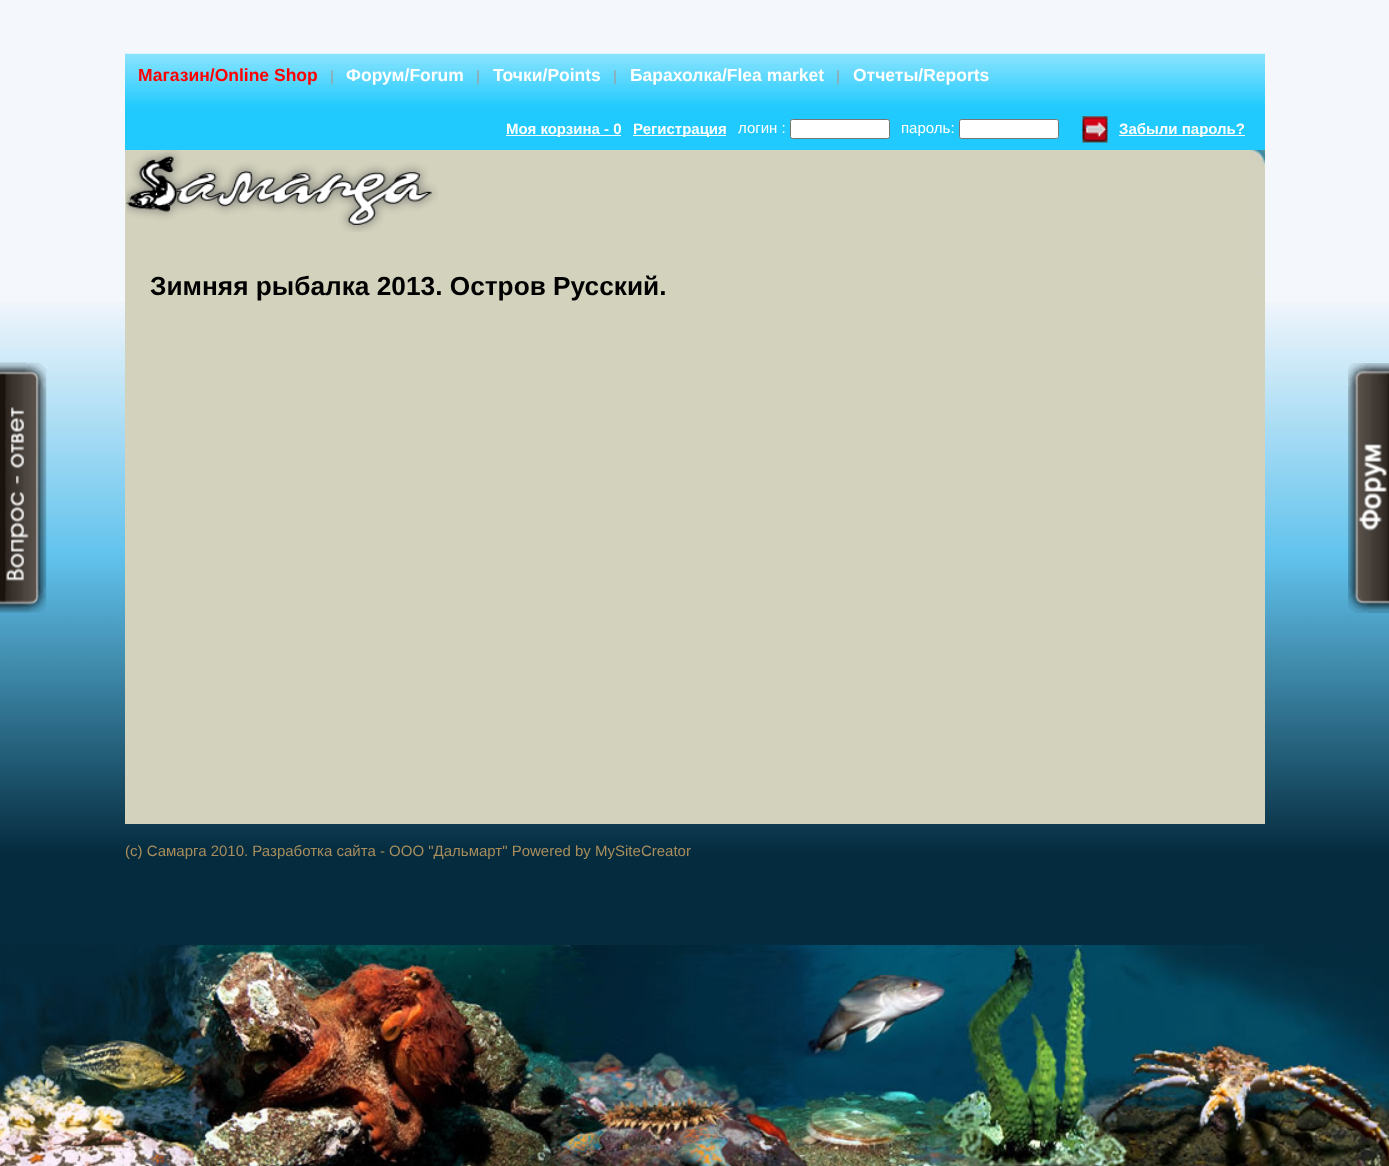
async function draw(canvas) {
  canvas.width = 1389;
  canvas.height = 1166;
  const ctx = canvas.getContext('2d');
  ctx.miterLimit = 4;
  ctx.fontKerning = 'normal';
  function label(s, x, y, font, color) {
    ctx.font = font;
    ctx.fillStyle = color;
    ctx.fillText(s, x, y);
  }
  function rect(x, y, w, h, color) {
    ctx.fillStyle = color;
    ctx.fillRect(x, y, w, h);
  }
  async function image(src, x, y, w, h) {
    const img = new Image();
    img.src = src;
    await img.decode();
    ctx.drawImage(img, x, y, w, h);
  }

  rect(0, 0, 1389, 1166, '#f4f7fc');
  await image('assets/img1.png', 0, 302, 1389, 643);
  await image('assets/img2.png', 125, 53, 1140, 97);
  label('Магазин/Online Shop', 138, 81, 'bold 17.5px Liberation Sans', '#f00');
  label('|', 330, 81, '15px Liberation Sans', '#9e9d9d');
  label('Форум/Forum', 346, 81, 'bold 17.5px Liberation Sans', '#fff');
  label('|', 476, 81, '15px Liberation Sans', '#9e9d9d');
  label('Точки/Points', 493, 81, 'bold 17.5px Liberation Sans', '#fff');
  label('|', 613, 81, '15px Liberation Sans', '#9e9d9d');
  label('Барахолка/Flea market', 630, 81, 'bold 17.5px Liberation Sans', '#fff');
  label('|', 836, 81, '15px Liberation Sans', '#9e9d9d');
  label('Отчеты/Reports', 853, 81, 'bold 17.5px Liberation Sans', '#fff');
  rect(506, 135, 115, 1, '#fff');
  label('Моя корзина - 0', 506, 134, 'bold 15px Liberation Sans', '#fff');
  rect(633, 135, 93, 1, '#fff');
  label('Регистрация', 633, 134, 'bold 15px Liberation Sans', '#fff');
  label('логин :', 738, 133, '15px Liberation Sans', '#fff');
  ctx.beginPath();
  ctx.roundRect(790.5, 119.5, 99, 19, 2);
  ctx.fill();
  ctx.strokeStyle = '#767676';
  ctx.stroke();
  label('пароль:', 901, 133, '15px Liberation Sans', '#fff');
  ctx.beginPath();
  ctx.roundRect(959.5, 119.5, 99, 19, 2);
  ctx.fill();
  ctx.stroke();
  await image('assets/img3.png', 1082, 116, 26, 27);
  rect(1119, 135, 126, 1, '#fff');
  label('Забыли пароль?', 1119, 134, 'bold 15px Liberation Sans', '#fff');
  rect(125, 150, 1140, 674, '#d3d2bd');
  await image('assets/img4.png', 1250, 150, 15, 125);
  await image('assets/img5.png', 126, 150, 312, 82);
  label('Зимняя рыбалка 2013. Остров Русский.', 150, 295, 'bold 26.25px Liberation Sans', '#000');
  label('(c) Самарга 2010. Разработка сайта - ООО "Дальмарт" Powered by MySiteCreator', 125, 856, '15px Liberation Sans', '#a88e5d');
  await image('assets/img6.png', 0, 362, 47, 251);
  await image('assets/img7.png', 1348, 363, 41, 250);
  await image('assets/img8.png', 0, 945, 1389, 221);
}

draw(document.querySelector('canvas'));
